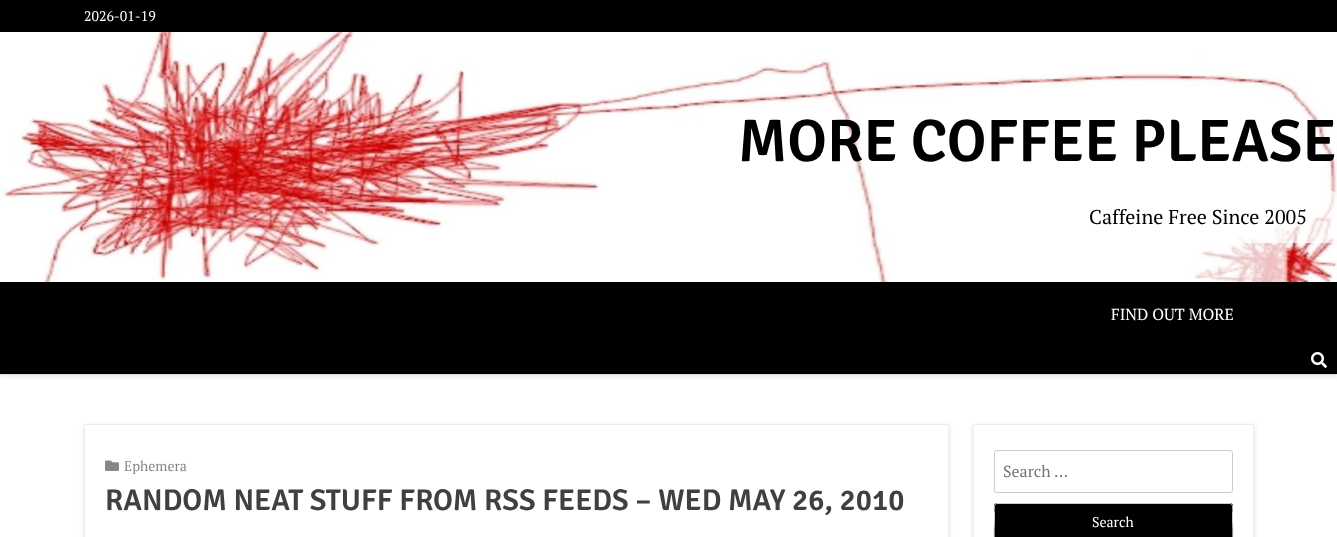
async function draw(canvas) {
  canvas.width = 1337;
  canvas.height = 537;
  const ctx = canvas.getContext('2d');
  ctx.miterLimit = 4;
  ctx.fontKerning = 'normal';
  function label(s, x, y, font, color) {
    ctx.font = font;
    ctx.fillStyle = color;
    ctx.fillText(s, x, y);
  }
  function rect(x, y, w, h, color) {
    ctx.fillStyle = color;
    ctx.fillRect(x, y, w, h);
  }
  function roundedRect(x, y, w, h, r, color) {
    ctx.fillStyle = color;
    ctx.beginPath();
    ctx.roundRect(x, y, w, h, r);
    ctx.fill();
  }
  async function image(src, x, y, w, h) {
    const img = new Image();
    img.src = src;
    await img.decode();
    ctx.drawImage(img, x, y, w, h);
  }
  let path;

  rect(0, 0, 1337, 537, '#fff');
  rect(0, 0, 1337, 32, '#000');
  label('2026-01-19', 84, 21, '14px PT Serif', '#fff');
  ctx.fillStyle = '#0000000d';
  ctx.filter = 'blur(0.5px)';
  ctx.beginPath();
  ctx.rect(0, 33, 1337, 342);
  ctx.fill();
  ctx.filter = 'none';
  ctx.fillStyle = '#32326926';
  ctx.filter = 'blur(2.5px)';
  ctx.beginPath();
  ctx.rect(0, 34, 1337, 342);
  ctx.fill();
  ctx.filter = 'none';
  await image('assets/img1.png', 0, 32, 1337, 250);
  label('MORE COFFEE PLEASE', 738, 161, '600 60px Signika', '#000');
  roundedRect(1059, 191, 278, 52, 5, '#ffffffb3');
  label('Caffeine Free Since 2005', 1089, 224, '20px PT Serif', '#000');
  rect(0, 282, 1337, 92, '#000');
  label('FIND OUT MORE', 1111, 320, '16px PT Serif', '#fff');
  await image('assets/img2.png', 1311, 352, 16, 16);
  ctx.save();
  path = new Path2D('M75 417H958V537H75ZM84 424H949V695H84Z');
  ctx.clip(path, 'evenodd');
  ctx.fillStyle = '#32326926';
  ctx.filter = 'blur(2.5px)';
  ctx.beginPath();
  ctx.rect(84, 426, 865, 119);
  ctx.fill();
  ctx.filter = 'none';
  ctx.restore();
  ctx.strokeStyle = '#ededed';
  ctx.strokeRect(84.5, 424.5, 864, 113);
  await image('assets/img3.png', 105, 460, 14, 11);
  label('Ephemera', 124, 471, '14px PT Serif', '#888');
  label('RANDOM NEAT STUFF FROM RSS FEEDS – WED MAY 26, 2010', 105, 510, '600 30px Signika', '#404040');
  ctx.save();
  path = new Path2D('M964 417H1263V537H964ZM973 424H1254V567H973Z');
  ctx.clip(path, 'evenodd');
  ctx.fillStyle = '#32326926';
  ctx.filter = 'blur(2.5px)';
  ctx.beginPath();
  ctx.rect(973, 426, 281, 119);
  ctx.fill();
  ctx.filter = 'none';
  ctx.restore();
  ctx.strokeRect(973.5, 424.5, 280, 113);
  ctx.beginPath();
  ctx.roundRect(994.5, 450.5, 238, 42, 2.5);
  ctx.strokeStyle = '#ccc';
  ctx.stroke();
  label('Search …', 1003, 477, '16px PT Serif', '#757575');
  roundedRect(994, 503, 239, 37, 3, '#000');
  path = new Path2D('M995 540C993.5 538 994.5 525 994.5 522V511.5C994.5 509.5 993.5 503.5 997 503.5H1230C1233.5 503.5 1232.5 509.5 1232.5 511.5V522C1232.5 525 1233.5 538 1232 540');
  ctx.stroke(path);
  label('Search', 1092, 527, '14px PT Serif', '#fff');
}

draw(document.querySelector('canvas'));
